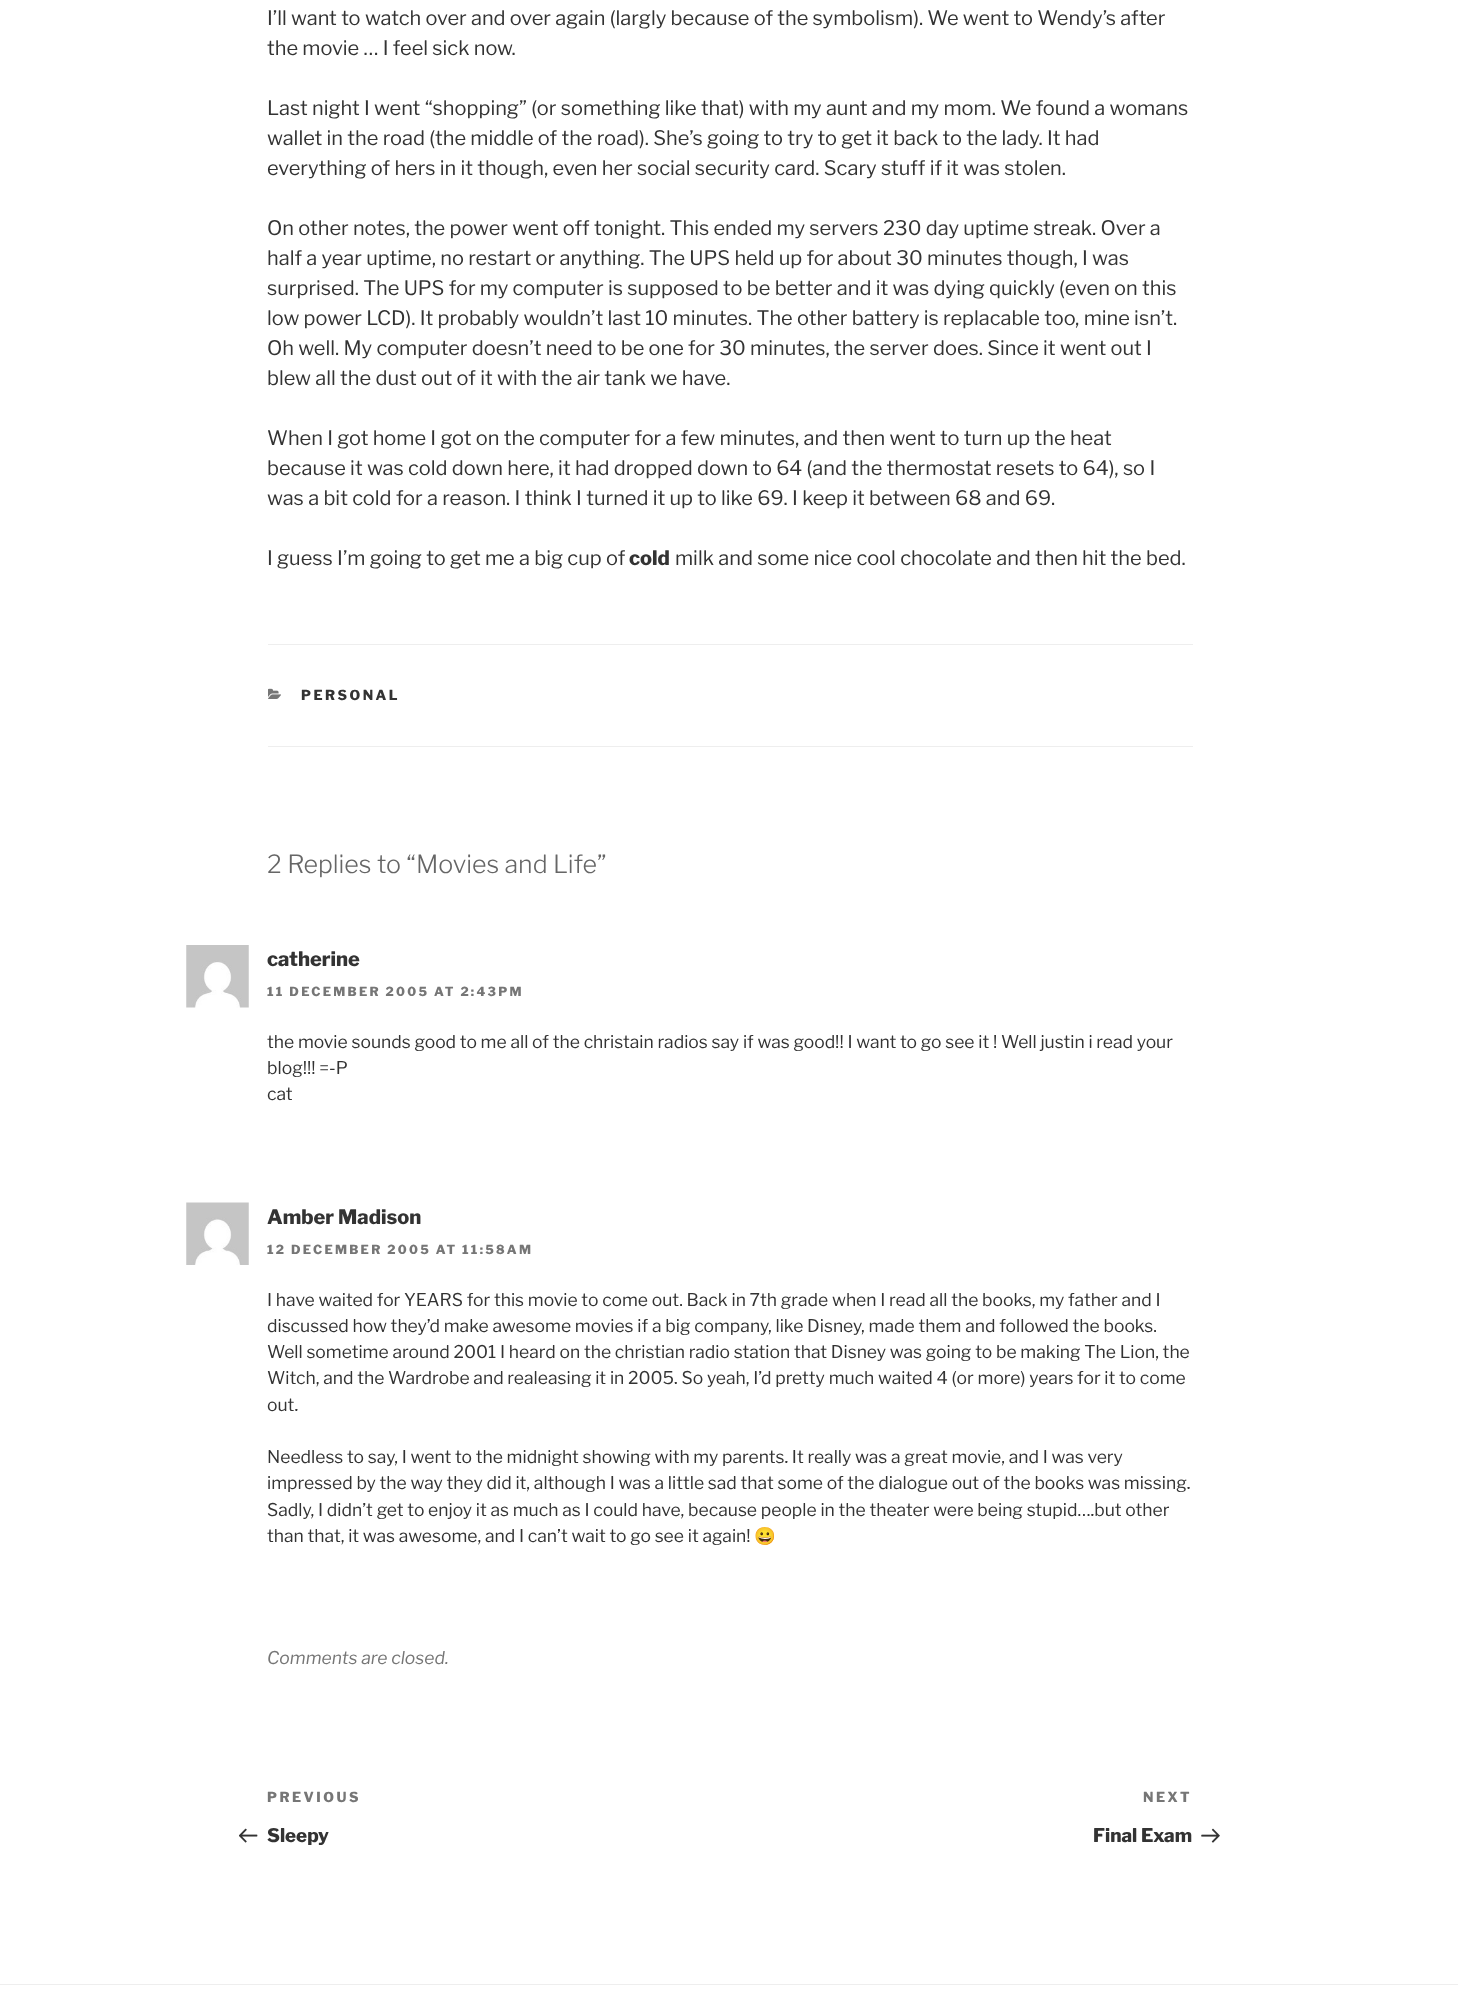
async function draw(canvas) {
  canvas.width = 1458;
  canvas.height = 2001;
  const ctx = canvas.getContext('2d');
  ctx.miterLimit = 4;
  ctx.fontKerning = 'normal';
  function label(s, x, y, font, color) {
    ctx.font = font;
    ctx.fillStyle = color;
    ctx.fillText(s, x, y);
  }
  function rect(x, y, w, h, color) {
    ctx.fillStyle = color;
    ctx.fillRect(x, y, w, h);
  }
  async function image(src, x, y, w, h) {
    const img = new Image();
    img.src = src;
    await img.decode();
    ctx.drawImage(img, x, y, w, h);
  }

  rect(0, 0, 1458, 2001, '#fff');
  label('I’ll want to watch over and over again (largly because of the symbolism). We went to Wendy’s after', 267, 25, '100 20px "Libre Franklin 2"', '#333');
  label('the movie … I feel sick now.', 267, 55, '100 20px "Libre Franklin 2"', '#333');
  label('Last night I went “shopping” (or something like that) with my aunt and my mom. We found a womans', 267, 115, '100 20px "Libre Franklin 2"', '#333');
  label('wallet in the road (the middle of the road). She’s going to try to get it back to the lady. It had', 267, 145, '100 20px "Libre Franklin 2"', '#333');
  label('everything of hers in it though, even her social security card. Scary stuff if it was stolen.', 267, 175, '100 20px "Libre Franklin 2"', '#333');
  label('On other notes, the power went off tonight. This ended my servers 230 day uptime streak. Over a', 267, 235, '100 20px "Libre Franklin 2"', '#333');
  label('half a year uptime, no restart or anything. The UPS held up for about 30 minutes though, I was', 267, 265, '100 20px "Libre Franklin 2"', '#333');
  label('surprised. The UPS for my computer is supposed to be better and it was dying quickly (even on this', 267, 295, '100 20px "Libre Franklin 2"', '#333');
  label('low power LCD). It probably wouldn’t last 10 minutes. The other battery is replacable too, mine isn’t.', 267, 325, '100 20px "Libre Franklin 2"', '#333');
  label('Oh well. My computer doesn’t need to be one for 30 minutes, the server does. Since it went out I', 267, 355, '100 20px "Libre Franklin 2"', '#333');
  label('blew all the dust out of it with the air tank we have.', 267, 385, '100 20px "Libre Franklin 2"', '#333');
  label('When I got home I got on the computer for a few minutes, and then went to turn up the heat', 267, 445, '100 20px "Libre Franklin 2"', '#333');
  label('because it was cold down here, it had dropped down to 64 (and the thermostat resets to 64), so I', 267, 475, '100 20px "Libre Franklin 2"', '#333');
  label('was a bit cold for a reason. I think I turned it up to like 69. I keep it between 68 and 69.', 267, 505, '100 20px "Libre Franklin 2"', '#333');
  label('I guess I’m going to get me a big cup of', 267, 565, '100 20px "Libre Franklin 2"', '#333');
  label('cold', 629, 565, '100 20px Libre Franklin', '#333');
  label('milk and some nice cool chocolate and then hit the bed.', 675, 565, '100 20px "Libre Franklin 2"', '#333');
  rect(268, 644, 925, 1, '#eee');
  rect(268, 746, 925, 1, '#eee');
  await image('assets/img1.png', 268, 688, 13, 11);
  ctx.letterSpacing = '2.5px';
  label('PERSONAL', 301, 700, '100 13.75px Libre Franklin', '#333');
  ctx.letterSpacing = '0px';
  label('2 Replies to “Movies and Life”', 267, 873, '100 25px "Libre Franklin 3"', '#666');
  await image('assets/img2.png', 186, 945, 63, 63);
  label('catherine', 267, 966, '100 20px Libre Franklin', '#333');
  ctx.letterSpacing = '2.25px';
  label('11 DECEMBER 2005 AT 2:43PM', 267, 996, '100 12.5px Libre Franklin', '#767676');
  ctx.letterSpacing = '0px';
  label('the movie sounds good to me all of the christain radios say if was good!! I want to go see it ! Well justin i read your', 267, 1048, '100 17.5px "Libre Franklin 2"', '#333');
  label('blog!!! =-P', 267, 1074, '100 17.5px "Libre Franklin 2"', '#333');
  label('cat', 267, 1100, '100 17.5px "Libre Franklin 2"', '#333');
  await image('assets/img3.png', 186, 1202, 63, 63);
  label('Amber Madison', 267, 1224, '100 20px Libre Franklin', '#333');
  ctx.letterSpacing = '2.25px';
  label('12 DECEMBER 2005 AT 11:58AM', 267, 1254, '100 12.5px Libre Franklin', '#767676');
  ctx.letterSpacing = '0px';
  label('I have waited for YEARS for this movie to come out. Back in 7th grade when I read all the books, my father and I', 267, 1306, '100 17.5px "Libre Franklin 2"', '#333');
  label('discussed how they’d make awesome movies if a big company, like Disney, made them and followed the books.', 267, 1332, '100 17.5px "Libre Franklin 2"', '#333');
  label('Well sometime around 2001 I heard on the christian radio station that Disney was going to be making The Lion, the', 267, 1358, '100 17.5px "Libre Franklin 2"', '#333');
  label('Witch, and the Wardrobe and realeasing it in 2005. So yeah, I’d pretty much waited 4 (or more) years for it to come', 267, 1384, '100 17.5px "Libre Franklin 2"', '#333');
  label('out.', 267, 1411, '100 17.5px "Libre Franklin 2"', '#333');
  label('Needless to say, I went to the midnight showing with my parents. It really was a great movie, and I was very', 267, 1463, '100 17.5px "Libre Franklin 2"', '#333');
  label('impressed by the way they did it, although I was a little sad that some of the dialogue out of the books was missing.', 267, 1489, '100 17.5px "Libre Franklin 2"', '#333');
  label('Sadly, I didn’t get to enjoy it as much as I could have, because people in the theater were being stupid….but other', 267, 1516, '100 17.5px "Libre Franklin 2"', '#333');
  label('than that, it was awesome, and I can’t wait to go see it again!', 267, 1542, '100 17.5px "Libre Franklin 2"', '#333');
  label('😀', 754, 1542, '17.5px Noto Color Emoji', '#333');
  label('Comments are closed.', 267, 1664, 'italic 100 17.5px Libre Franklin', '#767676');
  ctx.letterSpacing = '2.5px';
  label('PREVIOUS', 267, 1802, '100 13.75px Libre Franklin', '#767676');
  await image('assets/img4.png', 239, 1828, 19, 15);
  ctx.letterSpacing = '0px';
  label('Sleepy', 267, 1842, '100 18.75px Libre Franklin', '#333');
  ctx.letterSpacing = '2.5px';
  label('NEXT', 1143, 1802, '100 13.75px Libre Franklin', '#767676');
  ctx.letterSpacing = '0px';
  label('Final Exam', 1093, 1842, '100 18.75px Libre Franklin', '#333');
  await image('assets/img5.png', 1201, 1828, 19, 15);
  rect(0, 1984, 1458, 1, '#eee');
}

draw(document.querySelector('canvas'));
